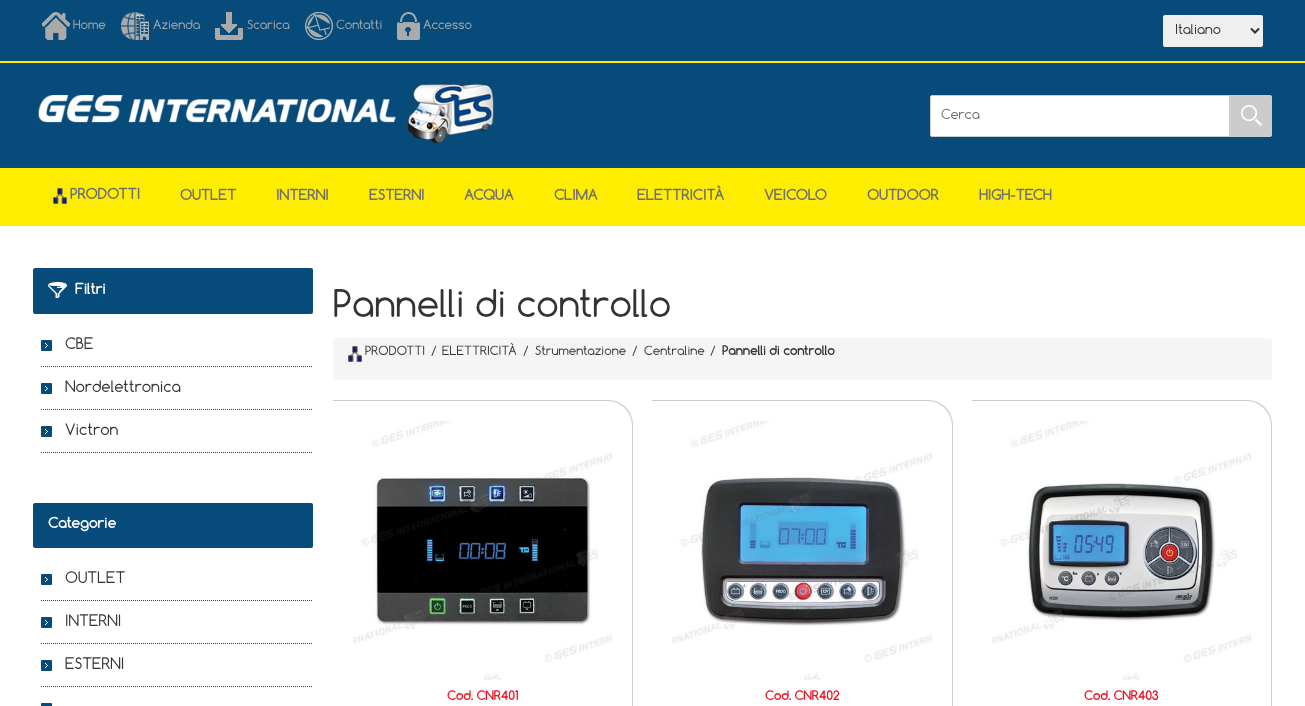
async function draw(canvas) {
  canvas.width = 1305;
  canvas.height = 706;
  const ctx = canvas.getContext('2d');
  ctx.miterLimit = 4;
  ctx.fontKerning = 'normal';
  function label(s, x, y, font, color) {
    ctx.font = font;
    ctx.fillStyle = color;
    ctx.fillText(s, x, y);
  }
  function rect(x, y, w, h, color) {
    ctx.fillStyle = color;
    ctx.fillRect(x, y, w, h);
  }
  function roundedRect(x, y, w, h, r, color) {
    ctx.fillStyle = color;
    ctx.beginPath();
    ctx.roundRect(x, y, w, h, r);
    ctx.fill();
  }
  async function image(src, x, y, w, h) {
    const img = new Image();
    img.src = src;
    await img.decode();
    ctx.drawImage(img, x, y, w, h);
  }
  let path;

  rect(0, 0, 1305, 706, '#fff');
  rect(0, 0, 1305, 61, '#074b7a');
  await image('assets/img1.png', 42, 12, 28, 28);
  label('Home', 73, 29, '12px Comfortaa', '#aaa');
  await image('assets/img2.png', 121, 12, 28, 28);
  label('Azienda', 153, 29, '12px Comfortaa', '#aaa');
  await image('assets/img3.png', 215, 12, 28, 28);
  label('Scarica', 247, 29, '12px Comfortaa', '#aaa');
  await image('assets/img4.png', 305, 12, 28, 28);
  label('Contatti', 336, 29, '12px Comfortaa', '#aaa');
  await image('assets/img5.png', 397, 12, 23, 28);
  label('Accesso', 423, 29, '12px Comfortaa', '#aaa');
  roundedRect(1163, 15, 100, 32, 2, '#efefef');
  path = new Path2D('M1251 28.5L1255 32.5L1259 28.5');
  ctx.strokeStyle = '#333';
  ctx.lineWidth = 2;
  ctx.stroke(path);
  label('Italiano', 1175, 34, '13px Comfortaa', '#333');
  rect(0, 63, 1305, 105, '#074b7a');
  rect(0, 61, 1305, 2, '#ffed00');
  await image('assets/img6.png', 38, 84, 456, 59);
  ctx.fillStyle = '#fff';
  ctx.beginPath();
  ctx.roundRect(930.5, 95.5, 299, 41, [1.5, 0, 0, 1.5]);
  ctx.fill();
  ctx.strokeStyle = '#ccc';
  ctx.lineWidth = 1;
  ctx.stroke();
  label('Cerca', 941, 119, '13px Comfortaa', '#707070');
  ctx.fillStyle = '#ccc';
  ctx.beginPath();
  ctx.roundRect(1230, 95, 42, 42, [0, 2, 2, 0]);
  ctx.fill();
  await image('assets/img7.png', 1241, 105, 21, 21);
  rect(0, 168, 1305, 58, '#ffed00');
  await image('assets/img8.png', 53, 188, 14, 16);
  label('PRODOTTI', 70, 199, 'bold 14px Comfortaa', '#707070');
  label('OUTLET', 180, 200, 'bold 14px Comfortaa', '#707070');
  label('INTERNI', 276, 200, 'bold 14px Comfortaa', '#707070');
  label('ESTERNI', 369, 200, 'bold 14px Comfortaa', '#707070');
  label('ACQUA', 464, 200, 'bold 14px Comfortaa', '#707070');
  label('CLIMA', 554, 200, 'bold 14px Comfortaa', '#707070');
  label('ELETTRICITÀ', 637, 200, 'bold 14px Comfortaa', '#707070');
  label('VEICOLO', 764, 200, 'bold 14px Comfortaa', '#707070');
  label('OUTDOOR', 867, 200, 'bold 14px Comfortaa', '#707070');
  label('HIGH-TECH', 979, 200, 'bold 14px Comfortaa', '#707070');
  roundedRect(33, 268, 280, 46, 2, '#074b7a');
  await image('assets/img9.png', 48, 282, 19, 16);
  label('Filtri', 75, 294, 'bold 14px Comfortaa', '#fff');
  path = new Path2D('M41 366.5H313');
  ctx.strokeStyle = '#074b7a';
  ctx.setLineDash([1, 1]);
  ctx.stroke(path);
  roundedRect(41, 340, 11, 11, 1, '#074b7a');
  await image('assets/img10.png', 45, 343, 3, 5);
  label('CBE', 65, 349, '15px Comfortaa', '#333');
  path = new Path2D('M41 409.5H313');
  ctx.stroke(path);
  roundedRect(41, 383, 11, 11, 1, '#074b7a');
  await image('assets/img10.png', 45, 386, 3, 5);
  label('Nordelettronica', 65, 392, '15px Comfortaa', '#333');
  path = new Path2D('M41 452.5H313');
  ctx.stroke(path);
  roundedRect(41, 426, 11, 11, 1, '#074b7a');
  await image('assets/img10.png', 45, 429, 3, 5);
  label('Victron', 65, 435, '15px Comfortaa', '#333');
  roundedRect(33, 503, 280, 45, 2, '#074b7a');
  label('Categorie', 48, 528, 'bold 14px Comfortaa', '#fff');
  path = new Path2D('M41 600.5H313');
  ctx.stroke(path);
  roundedRect(41, 574, 11, 11, 1, '#074b7a');
  await image('assets/img10.png', 45, 577, 3, 5);
  label('OUTLET', 65, 583, '15px Comfortaa', '#333');
  path = new Path2D('M41 643.5H313');
  ctx.stroke(path);
  roundedRect(41, 617, 11, 11, 1, '#074b7a');
  await image('assets/img10.png', 45, 620, 3, 5);
  label('INTERNI', 65, 626, '15px Comfortaa', '#333');
  path = new Path2D('M41 686.5H313');
  ctx.stroke(path);
  roundedRect(41, 660, 11, 11, 1, '#074b7a');
  await image('assets/img10.png', 45, 663, 3, 5);
  label('ESTERNI', 65, 669, '15px Comfortaa', '#333');
  roundedRect(41, 703, 11, 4, 1, '#074b7a');
  label('Pannelli di controllo', 333, 317, '36px Comfortaa', '#333');
  roundedRect(333, 338, 939, 42, 4, '#f5f5f5');
  await image('assets/img11.png', 348, 346, 14, 16);
  label('PRODOTTI', 365, 355, '12px Comfortaa', '#333');
  label('/', 431, 355, '12px Comfortaa', '#333');
  label('ELETTRICITÀ', 442, 355, '12px Comfortaa', '#333');
  label('/', 523, 355, '12px Comfortaa', '#333');
  label('Strumentazione', 535, 355, '12px Comfortaa', '#333');
  label('/', 632, 355, '12px Comfortaa', '#333');
  label('Centraline', 644, 355, '12px Comfortaa', '#333');
  label('/', 710, 355, '12px Comfortaa', '#333');
  label('Pannelli di controllo', 722, 355, 'bold 12px Comfortaa', '#333');
  ctx.fillStyle = '#ccc';
  path = new Path2D('M333 400H608C622 400 633 411 633 425V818H333ZM333 401H608C621 401 632 412 632 425V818H333Z');
  ctx.fill(path, 'evenodd');
  await image('assets/img12.png', 353, 421, 259, 259);
  label('Cod. CNR401', 447, 700, 'bold 12px Comfortaa', '#e12');
  ctx.fillStyle = '#ccc';
  path = new Path2D('M652 400H928C942 400 953 411 953 425V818H652ZM652 401H928C941 401 952 412 952 425V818H652Z');
  ctx.fill(path, 'evenodd');
  await image('assets/img13.png', 672, 421, 260, 259);
  label('Cod. CNR402', 765, 700, 'bold 12px Comfortaa', '#e12');
  ctx.fillStyle = '#ccc';
  path = new Path2D('M972 400H1247C1261 400 1272 411 1272 425V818H972ZM972 401H1247C1260 401 1271 412 1271 425V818H972Z');
  ctx.fill(path, 'evenodd');
  await image('assets/img14.png', 992, 421, 259, 259);
  label('Cod. CNR403', 1084, 700, 'bold 12px Comfortaa', '#e12');
}

draw(document.querySelector('canvas'));
